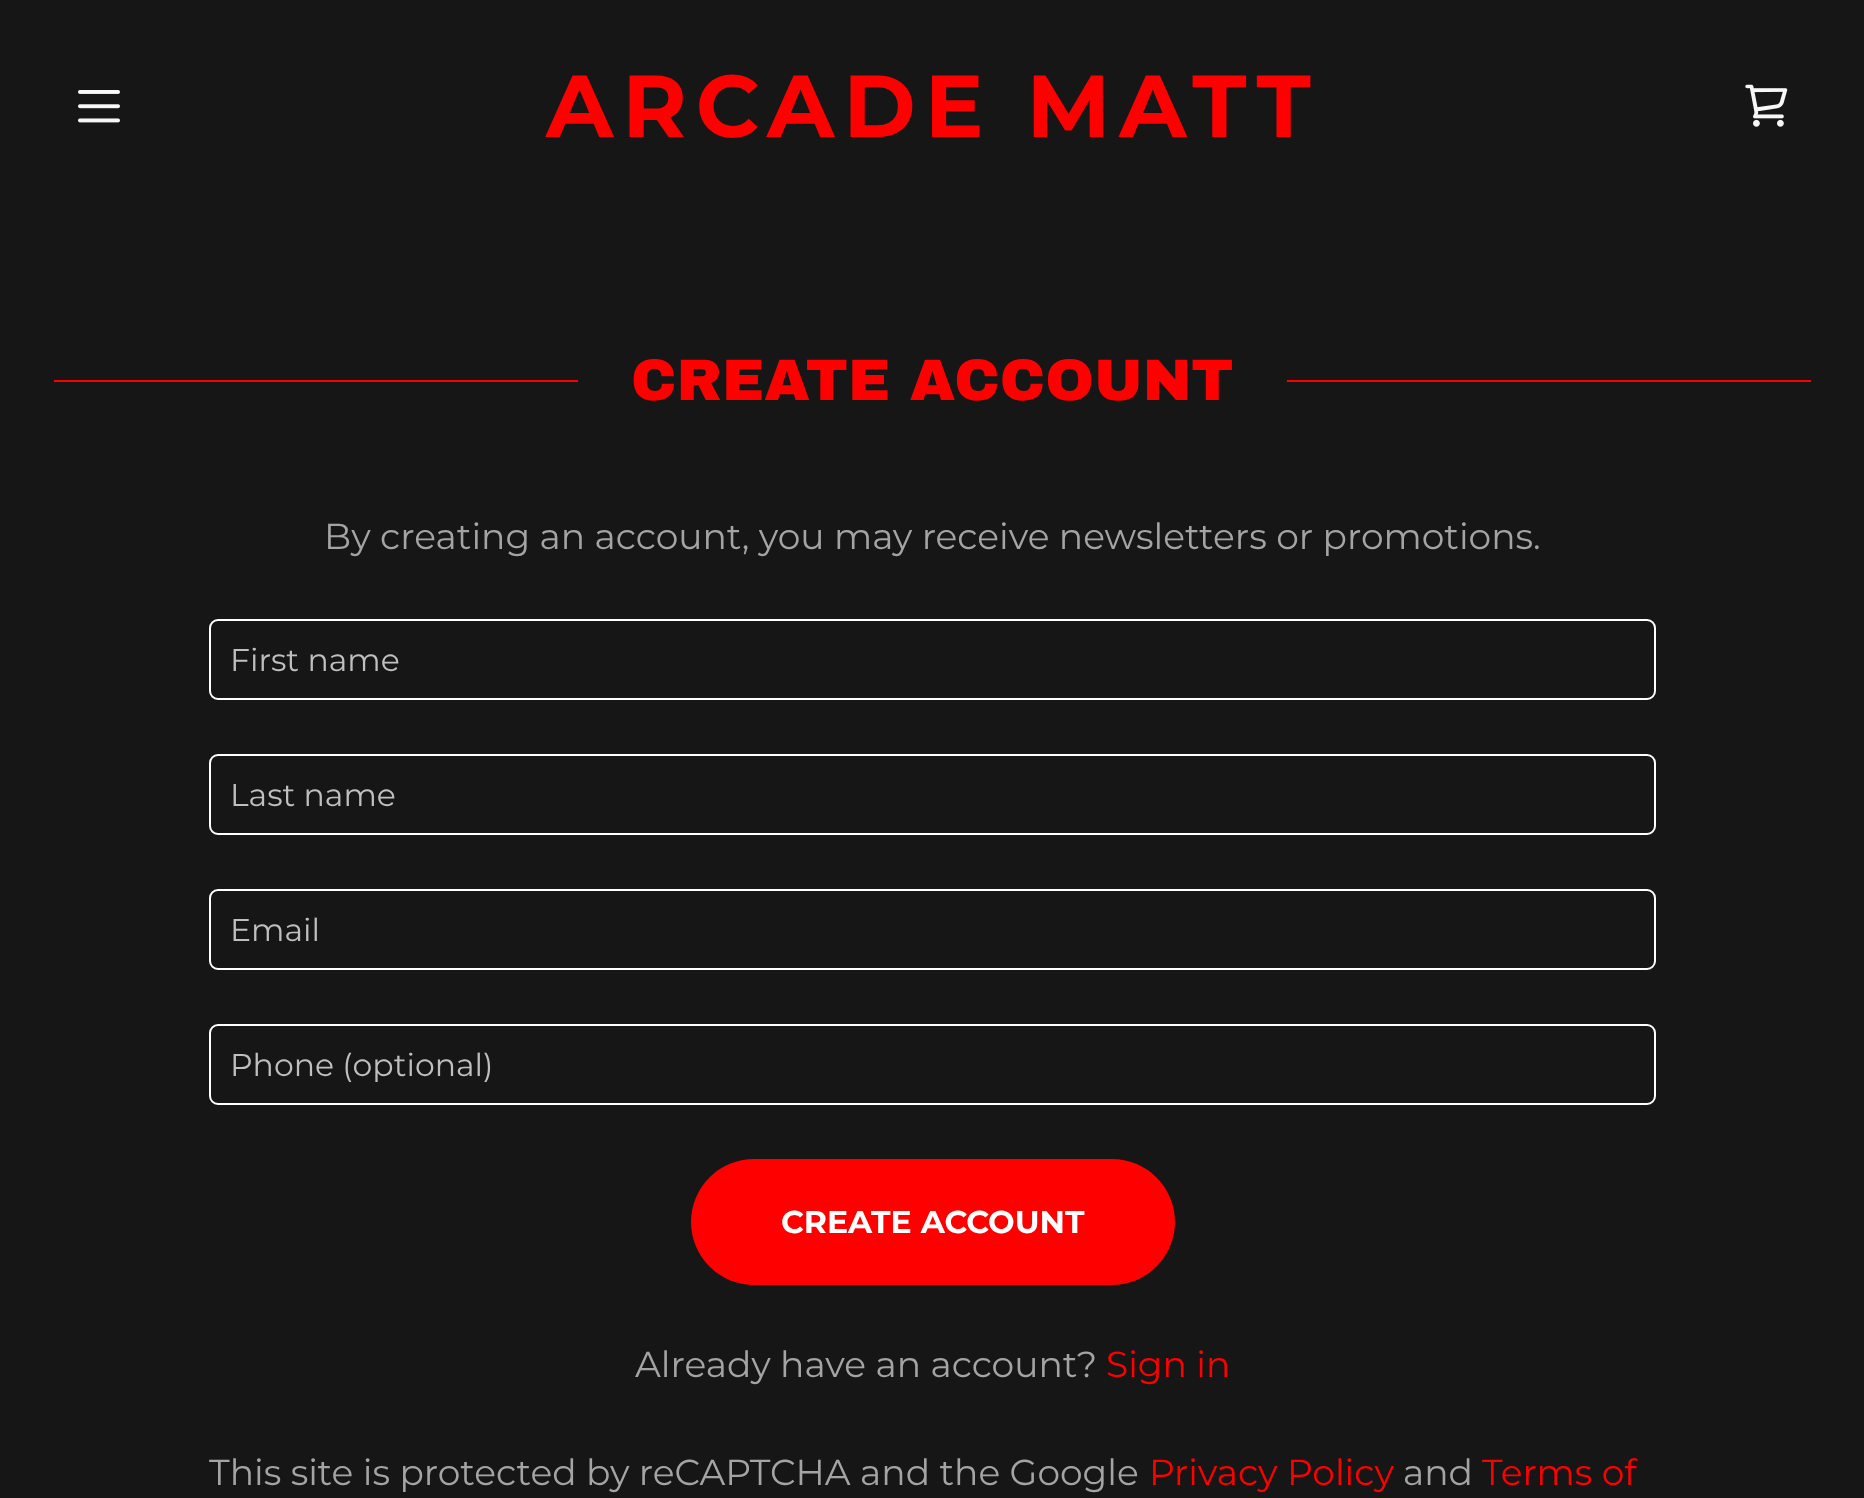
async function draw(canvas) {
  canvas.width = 1864;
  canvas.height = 1498;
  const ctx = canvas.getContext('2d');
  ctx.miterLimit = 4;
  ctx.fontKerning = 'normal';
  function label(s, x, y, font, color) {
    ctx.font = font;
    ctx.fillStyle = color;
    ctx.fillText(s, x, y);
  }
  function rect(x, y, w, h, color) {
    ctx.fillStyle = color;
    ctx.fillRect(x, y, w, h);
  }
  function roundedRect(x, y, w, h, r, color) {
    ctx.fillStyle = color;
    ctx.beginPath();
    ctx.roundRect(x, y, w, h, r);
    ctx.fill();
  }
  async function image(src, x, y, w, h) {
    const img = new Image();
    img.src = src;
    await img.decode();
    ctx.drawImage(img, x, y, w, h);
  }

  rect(0, 0, 1864, 1498, '#161616');
  await image('assets/img1.png', 78, 90, 42, 33);
  ctx.letterSpacing = '9px';
  label('ARCADE MATT', 546, 137, 'bold 87.75px Montserrat', '#f00');
  await image('assets/img2.png', 1745, 84, 43, 43);
  rect(54, 380, 524, 2, '#f00');
  ctx.letterSpacing = '0px';
  label('CREATE ACCOUNT', 631, 400, '900 58.5px Archivo Black', '#f00');
  rect(1287, 380, 524, 2, '#f00');
  label('By creating an account, you may receive newsletters or promotions.', 324, 549, '36px Montserrat', '#a4a4a4');
  ctx.beginPath();
  ctx.roundRect(210, 620, 1445, 79, 8);
  ctx.strokeStyle = '#fff';
  ctx.lineWidth = 2;
  ctx.stroke();
  label('First name', 230, 671, '31.5px Montserrat', '#bfbfbf');
  ctx.beginPath();
  ctx.roundRect(210, 755, 1445, 79, 8);
  ctx.stroke();
  label('Last name', 230, 806, '31.5px Montserrat', '#bfbfbf');
  ctx.beginPath();
  ctx.roundRect(210, 890, 1445, 79, 8);
  ctx.stroke();
  label('Email', 230, 941, '31.5px Montserrat', '#bfbfbf');
  ctx.beginPath();
  ctx.roundRect(210, 1025, 1445, 79, 8);
  ctx.stroke();
  label('Phone (optional)', 230, 1076, '31.5px Montserrat', '#bfbfbf');
  roundedRect(691, 1159, 484, 126, 63, '#f00');
  label('CREATE ACCOUNT', 781, 1233, 'bold 31.5px Montserrat', '#fff');
  label('Already have an account?', 635, 1377, '36px Montserrat', '#a4a4a4');
  label('Sign in', 1106, 1377, '36px Montserrat', '#f00');
  label('This site is protected by reCAPTCHA and the Google', 209, 1485, '36px Montserrat', '#a4a4a4');
  label('Privacy Policy', 1149, 1485, '36px Montserrat', '#f00');
  label('and', 1403, 1485, '36px Montserrat', '#a4a4a4');
  label('Terms of', 1482, 1485, '36px Montserrat', '#f00');
}

draw(document.querySelector('canvas'));
